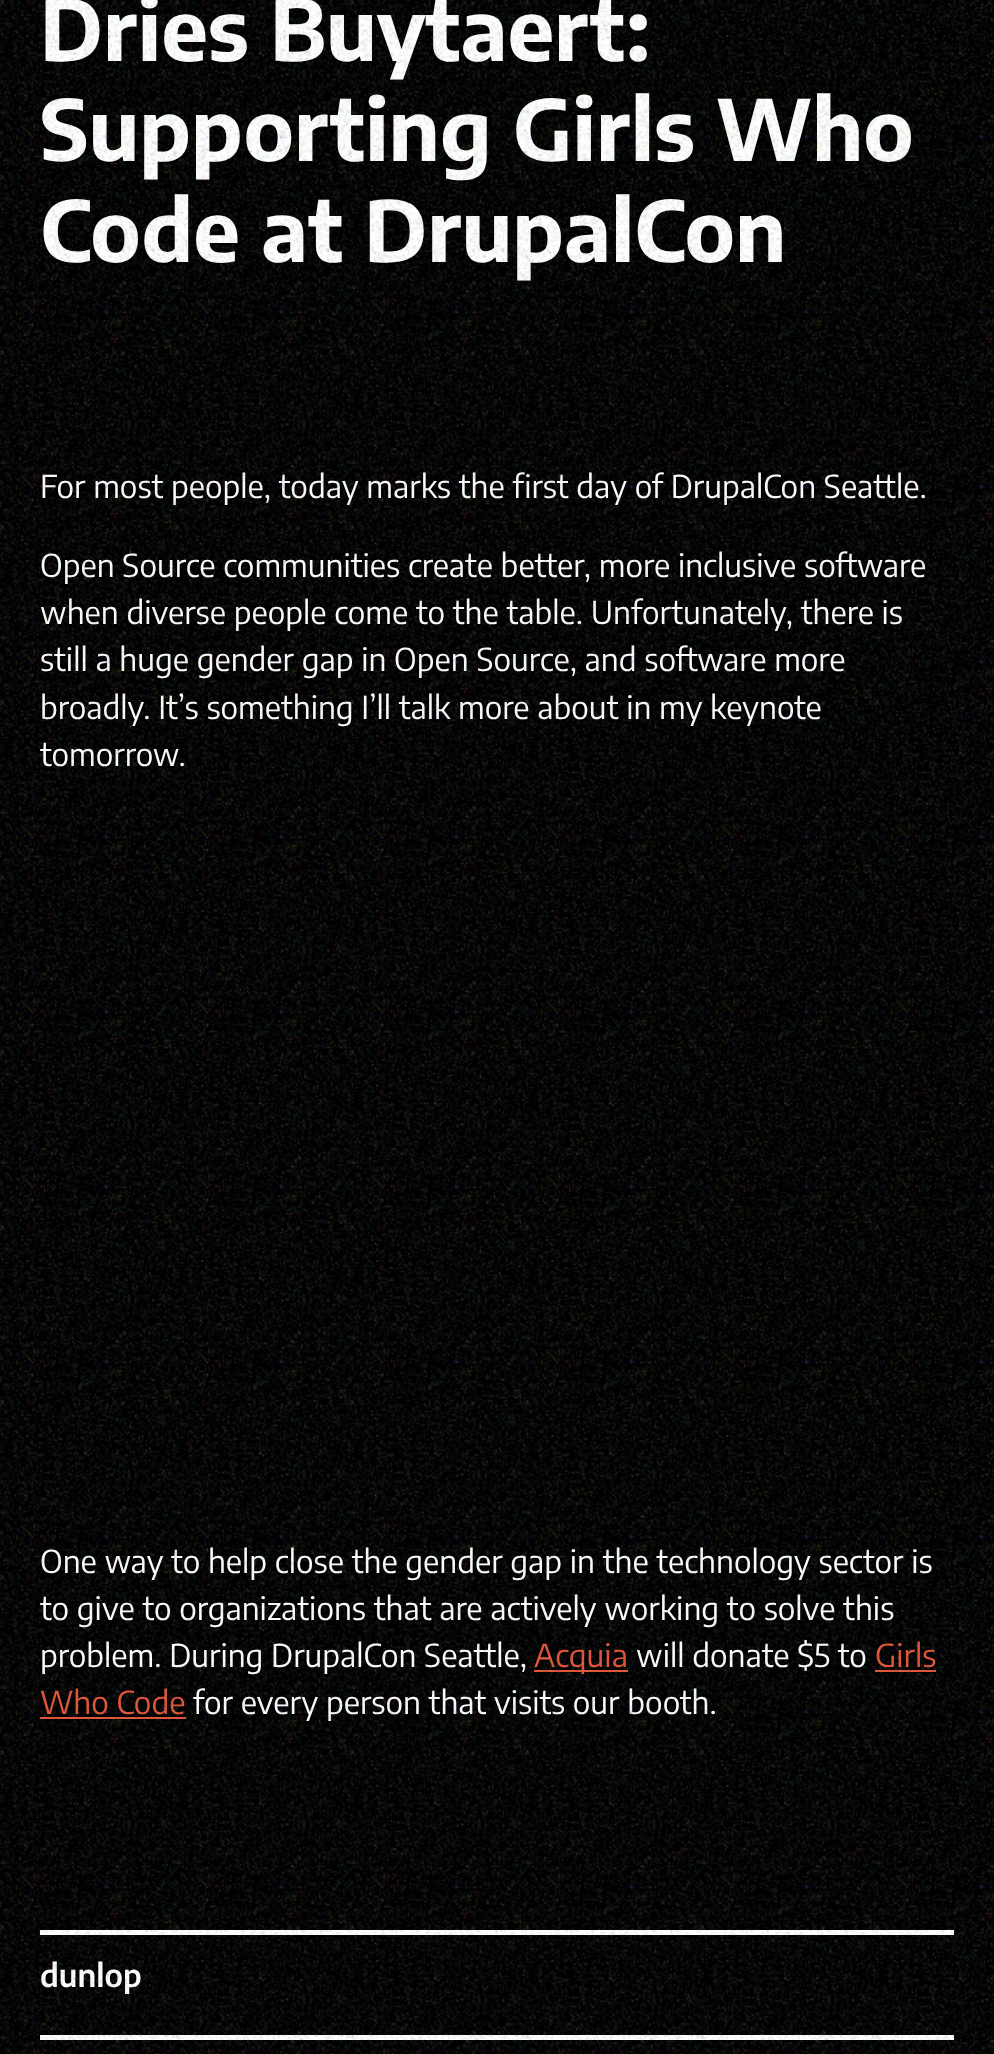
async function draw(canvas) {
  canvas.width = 994;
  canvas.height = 2054;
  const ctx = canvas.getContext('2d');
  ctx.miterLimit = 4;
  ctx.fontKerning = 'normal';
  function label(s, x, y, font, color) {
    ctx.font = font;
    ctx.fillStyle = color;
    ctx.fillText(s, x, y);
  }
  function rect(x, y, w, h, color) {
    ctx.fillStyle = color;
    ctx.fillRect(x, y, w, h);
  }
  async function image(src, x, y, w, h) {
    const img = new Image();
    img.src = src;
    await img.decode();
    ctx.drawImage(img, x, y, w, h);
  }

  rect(0, 0, 994, 2054, '#000');
  label('Dries Buytaert:', 40, 61, 'bold 84px Encode Sans', '#fff');
  label('Supporting Girls Who', 40, 161, 'bold 84px Encode Sans', '#fff');
  label('Code at DrupalCon', 40, 262, 'bold 84px Encode Sans', '#fff');
  label('For most people, today marks the first day of DrupalCon Seattle.', 40, 498, '31.5px Encode Sans', '#fff');
  label('Open Source communities create better, more inclusive software', 40, 577, '31.5px Encode Sans', '#fff');
  label('when diverse people come to the table. Unfortunately, there is', 40, 624, '31.5px Encode Sans', '#fff');
  label('still a huge gender gap in Open Source, and software more', 40, 671, '31.5px Encode Sans', '#fff');
  label('broadly. It’s something I’ll talk more about in my keynote', 40, 719, '31.5px Encode Sans', '#fff');
  label('tomorrow.', 40, 766, '31.5px Encode Sans', '#fff');
  label('One way to help close the gender gap in the technology sector is', 40, 1573, '31.5px Encode Sans', '#fff');
  label('to give to organizations that are actively working to solve this', 40, 1620, '31.5px Encode Sans', '#fff');
  label('problem. During DrupalCon Seattle,', 40, 1667, '31.5px Encode Sans', '#fff');
  rect(534, 1670, 94, 2, '#e55538');
  label('Acquia', 534, 1667, '31.5px Encode Sans', '#e55538');
  label('will donate $5 to', 636, 1667, '31.5px Encode Sans', '#fff');
  label('Girls', 875, 1667, '31.5px Encode Sans', '#e55538');
  rect(875, 1670, 61, 2, '#e55538');
  label('Who Code', 40, 1714, '31.5px Encode Sans', '#e55538');
  rect(40, 1717, 146, 2, '#e55538');
  label('for every person that visits our booth.', 193, 1714, '31.5px Encode Sans', '#fff');
  rect(40, 1930, 914, 5, '#fff');
  label('dunlop', 40, 1987, '600 31.5px Encode Sans', '#fff');
  rect(40, 2035, 914, 5, '#fff');
  await image('assets/img1.png', 0, 0, 994, 2054);
}

draw(document.querySelector('canvas'));
